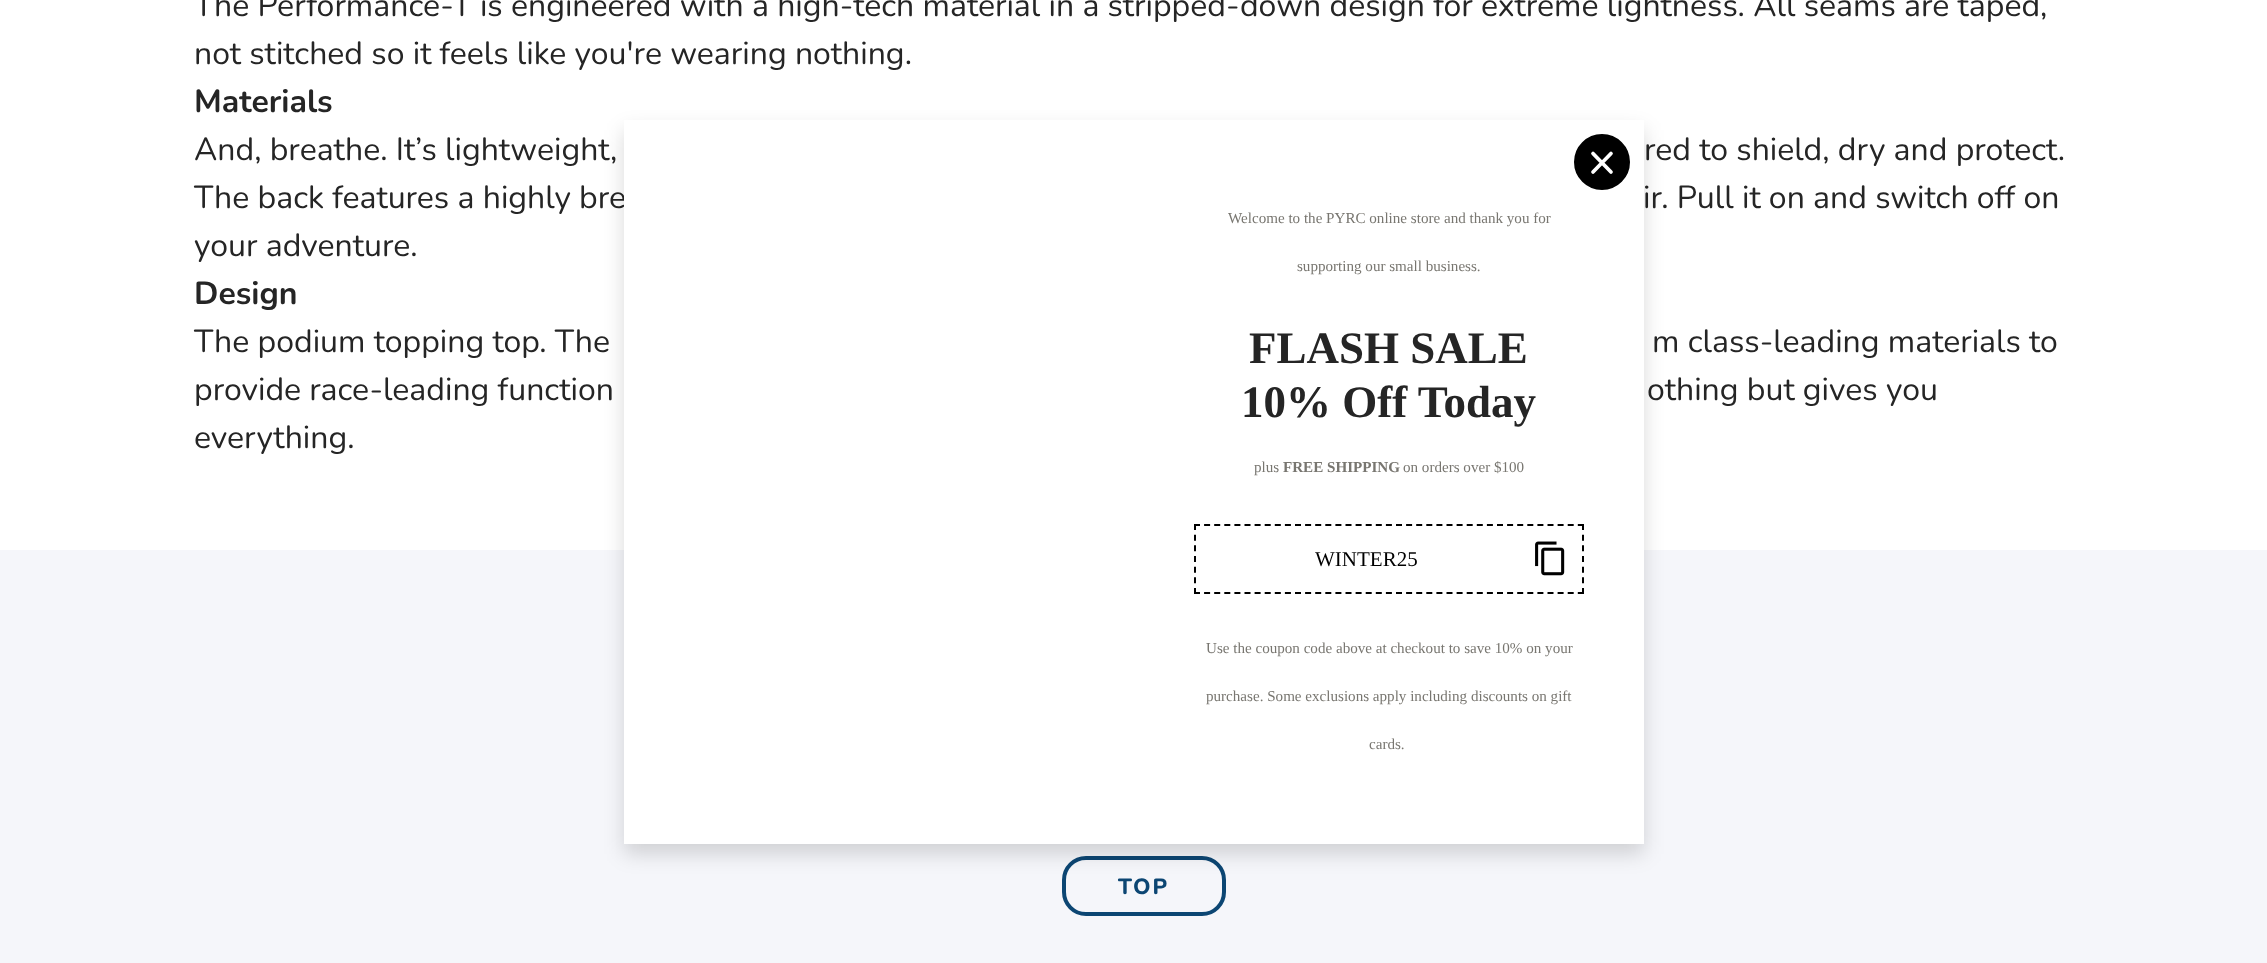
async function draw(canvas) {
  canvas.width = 2267;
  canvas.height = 963;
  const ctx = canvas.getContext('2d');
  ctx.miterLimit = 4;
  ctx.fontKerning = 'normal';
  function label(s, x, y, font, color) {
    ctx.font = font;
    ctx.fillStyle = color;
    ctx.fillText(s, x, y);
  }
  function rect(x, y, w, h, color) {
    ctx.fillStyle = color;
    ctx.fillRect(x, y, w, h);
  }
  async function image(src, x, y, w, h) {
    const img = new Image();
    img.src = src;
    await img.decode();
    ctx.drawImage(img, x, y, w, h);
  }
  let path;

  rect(0, 0, 2267, 963, '#fff');
  label('The Performance-T is engineered with a high-tech material in a stripped-down design for extreme lightness. All seams are taped,', 194, 16, '32px Nunito', '#252525');
  label('not stitched so it feels like you\'re wearing nothing.', 194, 64, '32px Nunito', '#252525');
  label('Materials', 194, 112, 'bold 32px Nunito', '#252525');
  label('And, breathe. It’s lightweight,', 194, 160, '32px Nunito', '#252525');
  label('red to shield, dry and protect.', 1644, 160, '32px Nunito', '#252525');
  label('The back features a highly bre', 194, 208, '32px Nunito', '#252525');
  label('ir. Pull it on and switch off on', 1643, 208, '32px Nunito', '#252525');
  label('your adventure.', 194, 256, '32px Nunito', '#252525');
  label('Design', 194, 304, 'bold 32px Nunito', '#252525');
  label('The podium topping top. The', 194, 352, '32px Nunito', '#252525');
  label('m class-leading materials to', 1652, 352, '32px Nunito', '#252525');
  label('provide race-leading function', 194, 400, '32px Nunito', '#252525');
  label('othing but gives you', 1647, 400, '32px Nunito', '#252525');
  label('everything.', 194, 448, '32px Nunito', '#252525');
  rect(0, 550, 2267, 413, '#f5f6fa');
  ctx.beginPath();
  ctx.roundRect(1064, 858, 160, 56, 22);
  ctx.strokeStyle = '#0c4673';
  ctx.lineWidth = 4;
  ctx.stroke();
  ctx.fillStyle = '#00000026';
  ctx.filter = 'blur(10px)';
  ctx.beginPath();
  ctx.rect(624, 130, 1020, 724);
  ctx.fill();
  ctx.filter = 'none';
  rect(624, 120, 1020, 724, '#fff');
  ctx.fillStyle = '#000';
  ctx.beginPath();
  ctx.arc(1602, 162, 27, 0, 2 * Math.PI);
  ctx.fill();
  ctx.strokeStyle = '#000';
  ctx.lineWidth = 2;
  ctx.stroke();
  path = new Path2D('M1611 153.5L1593 172M1593 153.5L1611 172');
  ctx.strokeStyle = '#fff';
  ctx.lineWidth = 3.7;
  ctx.lineCap = 'round';
  ctx.stroke(path);
  label('Welcome to the PYRC online store and thank you for', 1228, 223, '15.1px Liberation Serif', '#787670');
  label('supporting our small business.', 1297, 271, '15.1px Liberation Serif', '#787670');
  label('FLASH SALE', 1249, 363, 'bold 45px Liberation Serif', '#252525');
  label('10% Off Today', 1241, 417, 'bold 45px Liberation Serif', '#252525');
  label('plus', 1254, 472, '15.1px Liberation Serif', '#787670');
  label('FREE SHIPPING', 1283, 472, 'bold 15.1px Liberation Serif', '#787670');
  label('on orders over $100', 1403, 472, '15.1px Liberation Serif', '#787670');
  path = new Path2D('M1194 525H1584');
  ctx.strokeStyle = '#000';
  ctx.lineWidth = 2;
  ctx.lineCap = 'butt';
  ctx.setLineDash([6, 4.1]);
  ctx.stroke(path);
  path = new Path2D('M1583 524V594');
  ctx.setLineDash([6, 4.66]);
  ctx.stroke(path);
  path = new Path2D('M1194 593H1584');
  ctx.setLineDash([6, 4.1]);
  ctx.stroke(path);
  path = new Path2D('M1195 524V594');
  ctx.setLineDash([6, 4.66]);
  ctx.stroke(path);
  label('WINTER25', 1315, 566, '21px Liberation Serif', '#000');
  await image('assets/img1.png', 1535, 541, 30, 35);
  label('Use the coupon code above at checkout to save 10% on your', 1206, 653, '15.1px Liberation Serif', '#787670');
  label('purchase. Some exclusions apply including discounts on gift', 1206, 701, '15.1px Liberation Serif', '#787670');
  label('cards.', 1369, 749, '15.1px Liberation Serif', '#787670');
  ctx.letterSpacing = '2px';
  label('TOP', 1118, 894, '800 22px Nunito', '#0c4673');
}

draw(document.querySelector('canvas'));
